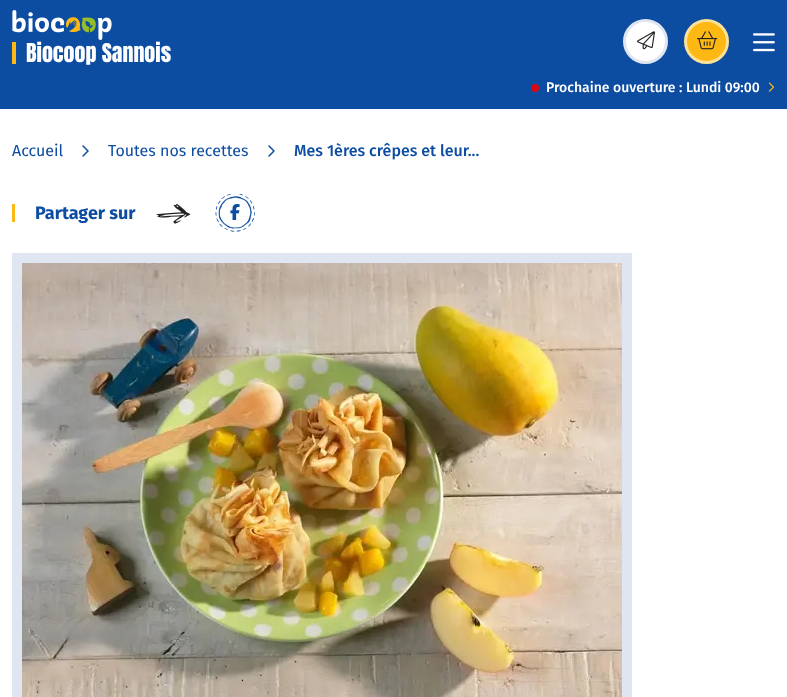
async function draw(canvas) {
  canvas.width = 787;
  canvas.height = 697;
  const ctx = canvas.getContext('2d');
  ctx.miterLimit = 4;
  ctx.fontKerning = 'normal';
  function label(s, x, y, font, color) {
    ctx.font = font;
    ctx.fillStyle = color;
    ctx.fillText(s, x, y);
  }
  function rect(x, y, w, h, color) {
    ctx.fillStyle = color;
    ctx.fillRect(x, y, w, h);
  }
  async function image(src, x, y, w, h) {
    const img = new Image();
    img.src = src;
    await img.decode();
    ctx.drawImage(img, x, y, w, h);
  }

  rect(0, 0, 787, 697, '#fff');
  rect(0, 0, 787, 109, '#0c4da2');
  await image('assets/img1.png', 12, 10, 100, 30);
  rect(12, 42, 4, 22, '#fdb813');
  label('Biocoop Sannois', 26, 62, '22px Anton', '#fff');
  ctx.beginPath();
  ctx.arc(645.5, 41.5, 21, 0, 2 * Math.PI);
  ctx.fill();
  ctx.strokeStyle = '#dfe5f1';
  ctx.lineWidth = 3;
  ctx.stroke();
  await image('assets/img2.png', 637, 31, 18, 19);
  ctx.fillStyle = '#fdb813';
  ctx.beginPath();
  ctx.arc(706.5, 41.5, 21, 0, 2 * Math.PI);
  ctx.fill();
  ctx.strokeStyle = '#fce197';
  ctx.stroke();
  await image('assets/img3.png', 697, 31, 21, 19);
  await image('assets/img4.png', 753, 33, 22, 19);
  ctx.fillStyle = '#da0812';
  ctx.beginPath();
  ctx.arc(535, 88, 4, 0, 2 * Math.PI);
  ctx.fill();
  label('Prochaine ouverture : Lundi 09:00', 546, 92, '500 14px Fira Sans', '#fff');
  await image('assets/img5.png', 768, 82, 7, 10);
  label('Accueil', 12, 156, '16px Fira Sans', '#0c4da2');
  await image('assets/img6.png', 82, 145, 7, 12);
  label('Toutes nos recettes', 108, 156, '16px Fira Sans', '#0c4da2');
  await image('assets/img6.png', 268, 145, 7, 12);
  label('Mes 1ères crêpes et leur...', 294, 156, '500 16px Fira Sans', '#0c4da2');
  rect(12, 204, 3, 18, '#fdb813');
  label('Partager sur', 35, 219, 'bold 18px Fira Sans', '#0c4da2');
  await image('assets/img7.png', 156, 203, 35, 21);
  await image('assets/img8.png', 215, 194, 40, 38);
  await image('assets/img9.png', 230, 204, 10, 16);
  ctx.beginPath();
  ctx.rect(17, 258, 610, 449);
  ctx.strokeStyle = '#dfe5f1';
  ctx.lineWidth = 10;
  ctx.stroke();
  await image('assets/img10.png', 22, 263, 600, 434);
}

draw(document.querySelector('canvas'));
